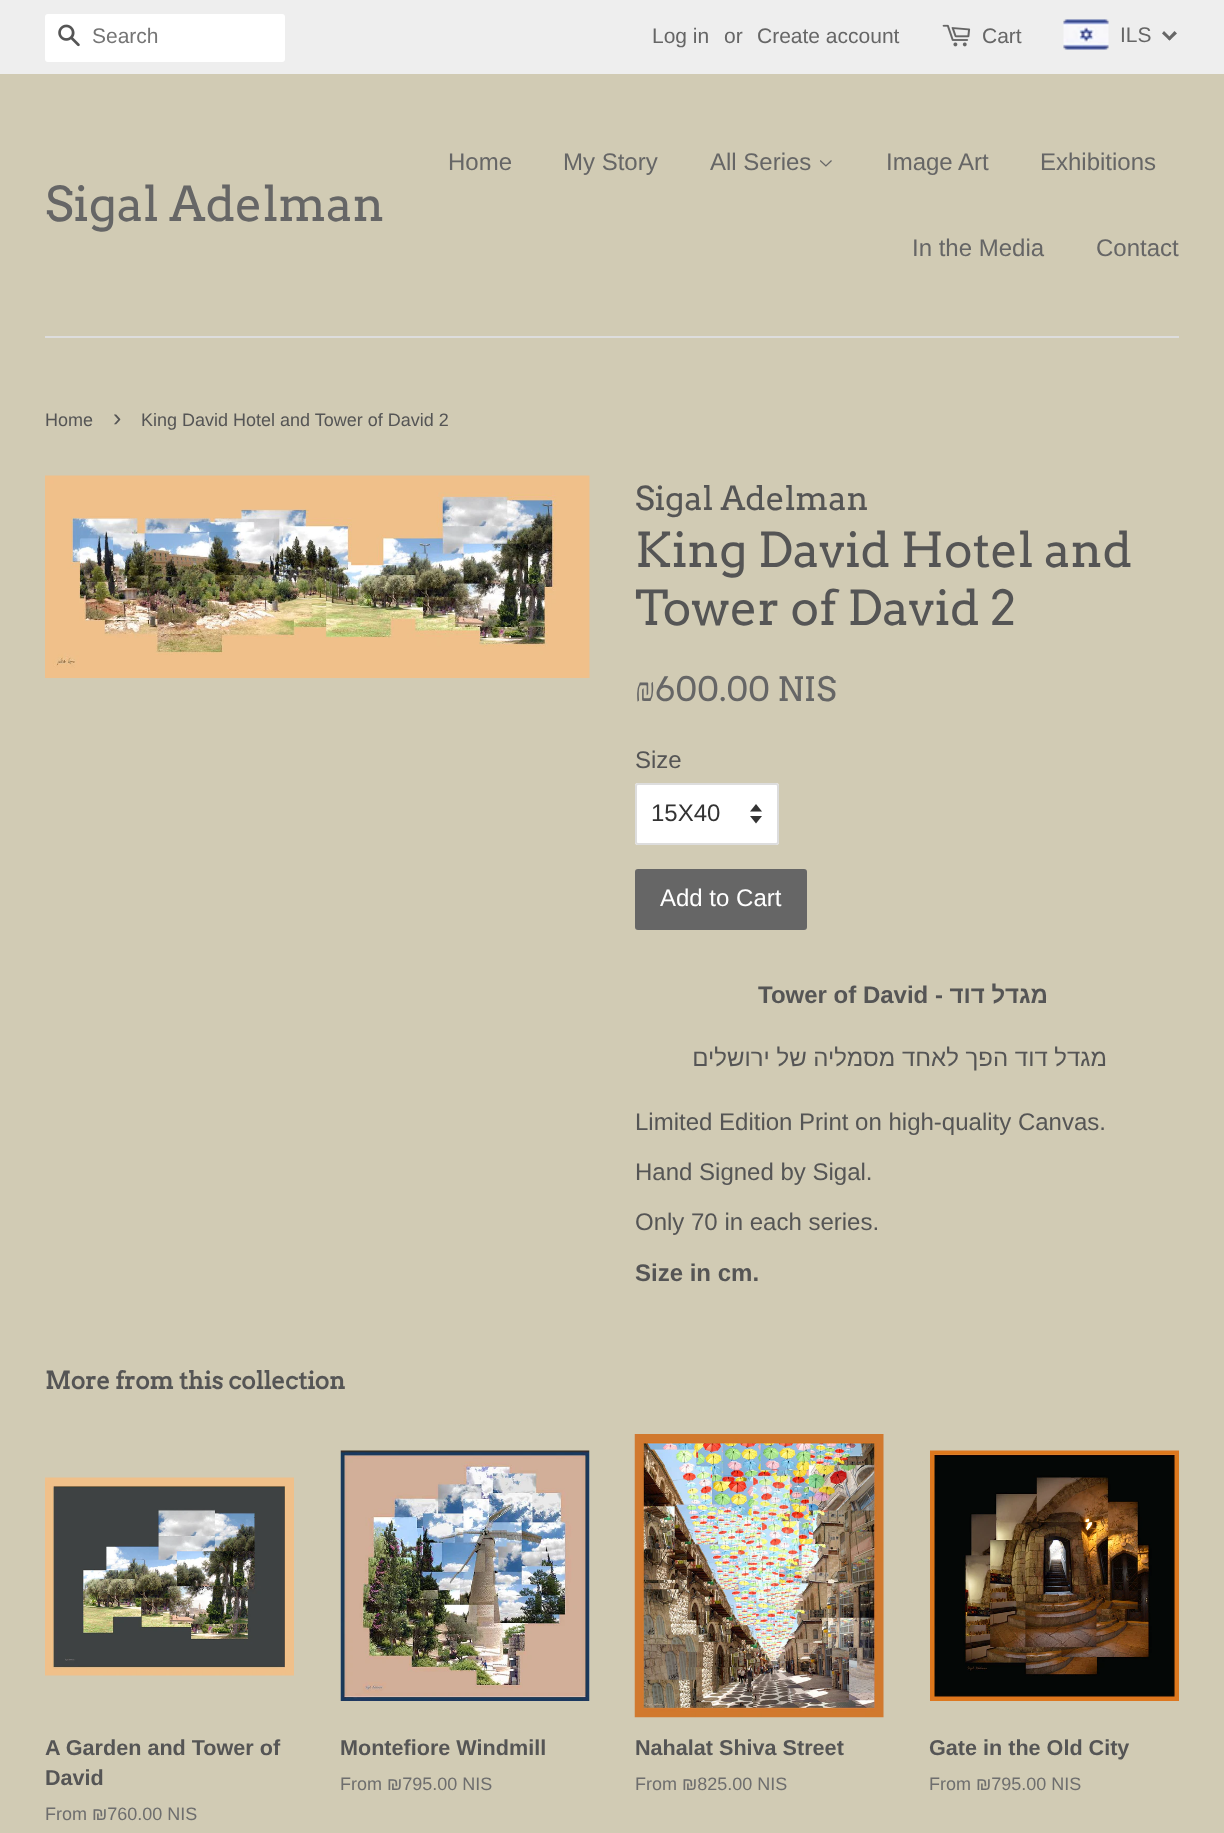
async function draw(canvas) {
  canvas.width = 1224;
  canvas.height = 1833;
  const ctx = canvas.getContext('2d');
  ctx.miterLimit = 4;
  ctx.fontKerning = 'normal';
  function label(s, x, y, font, color) {
    ctx.font = font;
    ctx.fillStyle = color;
    ctx.fillText(s, x, y);
  }
  function rect(x, y, w, h, color) {
    ctx.fillStyle = color;
    ctx.fillRect(x, y, w, h);
  }
  function roundedRect(x, y, w, h, r, color) {
    ctx.fillStyle = color;
    ctx.beginPath();
    ctx.roundRect(x, y, w, h, r);
    ctx.fill();
  }
  async function image(src, x, y, w, h) {
    const img = new Image();
    img.src = src;
    await img.decode();
    ctx.drawImage(img, x, y, w, h);
  }
  let path;

  rect(0, 0, 1224, 1833, '#d1cbb4');
  rect(0, 0, 1224, 74, '#eee');
  roundedRect(45, 14, 240, 48, 3, '#fff');
  await image('assets/img1.png', 58, 24, 22, 23);
  label('Search', 92, 43, '21px Liberation Sans', '#757575');
  label('Log in', 652, 43, '21px Liberation Sans', '#666');
  label('or', 724, 43, '21px Liberation Sans', '#666');
  label('Create account', 757, 43, '21px Liberation Sans', '#666');
  await image('assets/img2.png', 942, 24, 29, 23);
  label('Cart', 982, 43, '21px Liberation Sans', '#666');
  await image('assets/img3.png', 1063, 19, 46, 31);
  label('ILS', 1120, 42, '21px Liberation Sans', '#666');
  path = new Path2D('M1174.5 31L1177 33.5L1169.5 40.5L1167.5 38.5Z');
  ctx.fill(path);
  path = new Path2D('M1164 31L1171.5 38.5L1169.5 40.5L1162 33.5Z');
  ctx.fill(path);
  rect(45, 336, 1134, 2, '#ddd');
  label('Sigal Adelman', 45, 221, '48px Arvo', '#666');
  label('Home', 448, 170, '24px Liberation Sans', '#666');
  label('My Story', 563, 170, '24px Liberation Sans', '#666');
  label('All Series', 710, 170, '24px Liberation Sans', '#666');
  await image('assets/img4.png', 820, 160, 12, 7);
  label('Image Art', 886, 170, '24px Liberation Sans', '#666');
  label('Exhibitions', 1040, 170, '24px Liberation Sans', '#666');
  label('In the Media', 912, 256, '24px Liberation Sans', '#666');
  label('Contact', 1096, 256, '24px Liberation Sans', '#666');
  label('Home', 45, 426, '18px Liberation Sans', '#555');
  label('›', 113, 426, '25px Liberation Sans', '#555');
  label('King David Hotel and Tower of David 2', 141, 426, '18px Liberation Sans', '#555');
  await image('assets/img5.png', 45, 475, 545, 203);
  label('Sigal Adelman', 635, 510, '33px Arvo', '#555');
  label('King David Hotel and', 635, 567, '48px Arvo', '#555');
  label('Tower of David 2', 635, 625, '48px Arvo', '#555');
  label('₪', 635, 701, '33.5px Liberation Serif', '#666');
  label('600.00 NIS', 655, 701, '33.5px Arvo', '#666');
  label('Size', 635, 768, '24px Liberation Sans', '#555');
  roundedRect(635, 783, 144, 62, 3, '#fff');
  await image('assets/img6.png', 750, 804, 12, 20);
  ctx.beginPath();
  ctx.roundRect(636, 784, 142, 60, 2);
  ctx.strokeStyle = '#ddd';
  ctx.lineWidth = 2;
  ctx.stroke();
  label('15X40', 651, 821, '24px Liberation Sans', '#333');
  roundedRect(635, 869, 172, 61, 3, '#666');
  label('Add to Cart', 660, 906, '24px Liberation Sans', '#fff');
  label('Tower of David -', 758, 1003, 'bold 24px Liberation Sans', '#555');
  ctx.direction = 'rtl';
  label('מגדל דוד', 1048, 1003, 'bold 24px Liberation Sans', '#555');
  label('מגדל דוד הפך לאחד מסמליה של ירושלים', 1107, 1066, '24px Liberation Sans', '#555');
  ctx.direction = 'ltr';
  label('Limited Edition Print on high-quality Canvas.', 635, 1130, '24px Liberation Sans', '#555');
  label('Hand Signed by Sigal.', 635, 1180, '24px Liberation Sans', '#555');
  label('Only 70 in each series.', 635, 1230, '24px Liberation Sans', '#555');
  label('Size in cm.', 635, 1281, 'bold 24px Liberation Sans', '#555');
  label('More from this collection', 45, 1389, 'bold 24px Arvo', '#555');
  await image('assets/img7.png', 45, 1477, 249, 199);
  label('A Garden and Tower of', 45, 1755, 'bold 21.6px Liberation Sans', '#555');
  label('David', 45, 1785, 'bold 21.6px Liberation Sans', '#555');
  label('From ₪760.00 NIS', 45, 1820, '18px Liberation Sans', '#6e6e6e');
  await image('assets/img8.png', 340, 1450, 250, 251);
  label('Montefiore Windmill', 340, 1755, 'bold 21.6px Liberation Sans', '#555');
  label('From ₪795.00 NIS', 340, 1790, '18px Liberation Sans', '#6e6e6e');
  await image('assets/img9.png', 634, 1434, 250, 284);
  label('Nahalat Shiva Street', 635, 1755, 'bold 21.6px Liberation Sans', '#555');
  label('From ₪825.00 NIS', 635, 1790, '18px Liberation Sans', '#6e6e6e');
  await image('assets/img10.png', 930, 1450, 249, 251);
  label('Gate in the Old City', 929, 1755, 'bold 21.6px Liberation Sans', '#555');
  label('From ₪795.00 NIS', 929, 1790, '18px Liberation Sans', '#6e6e6e');
}

draw(document.querySelector('canvas'));
